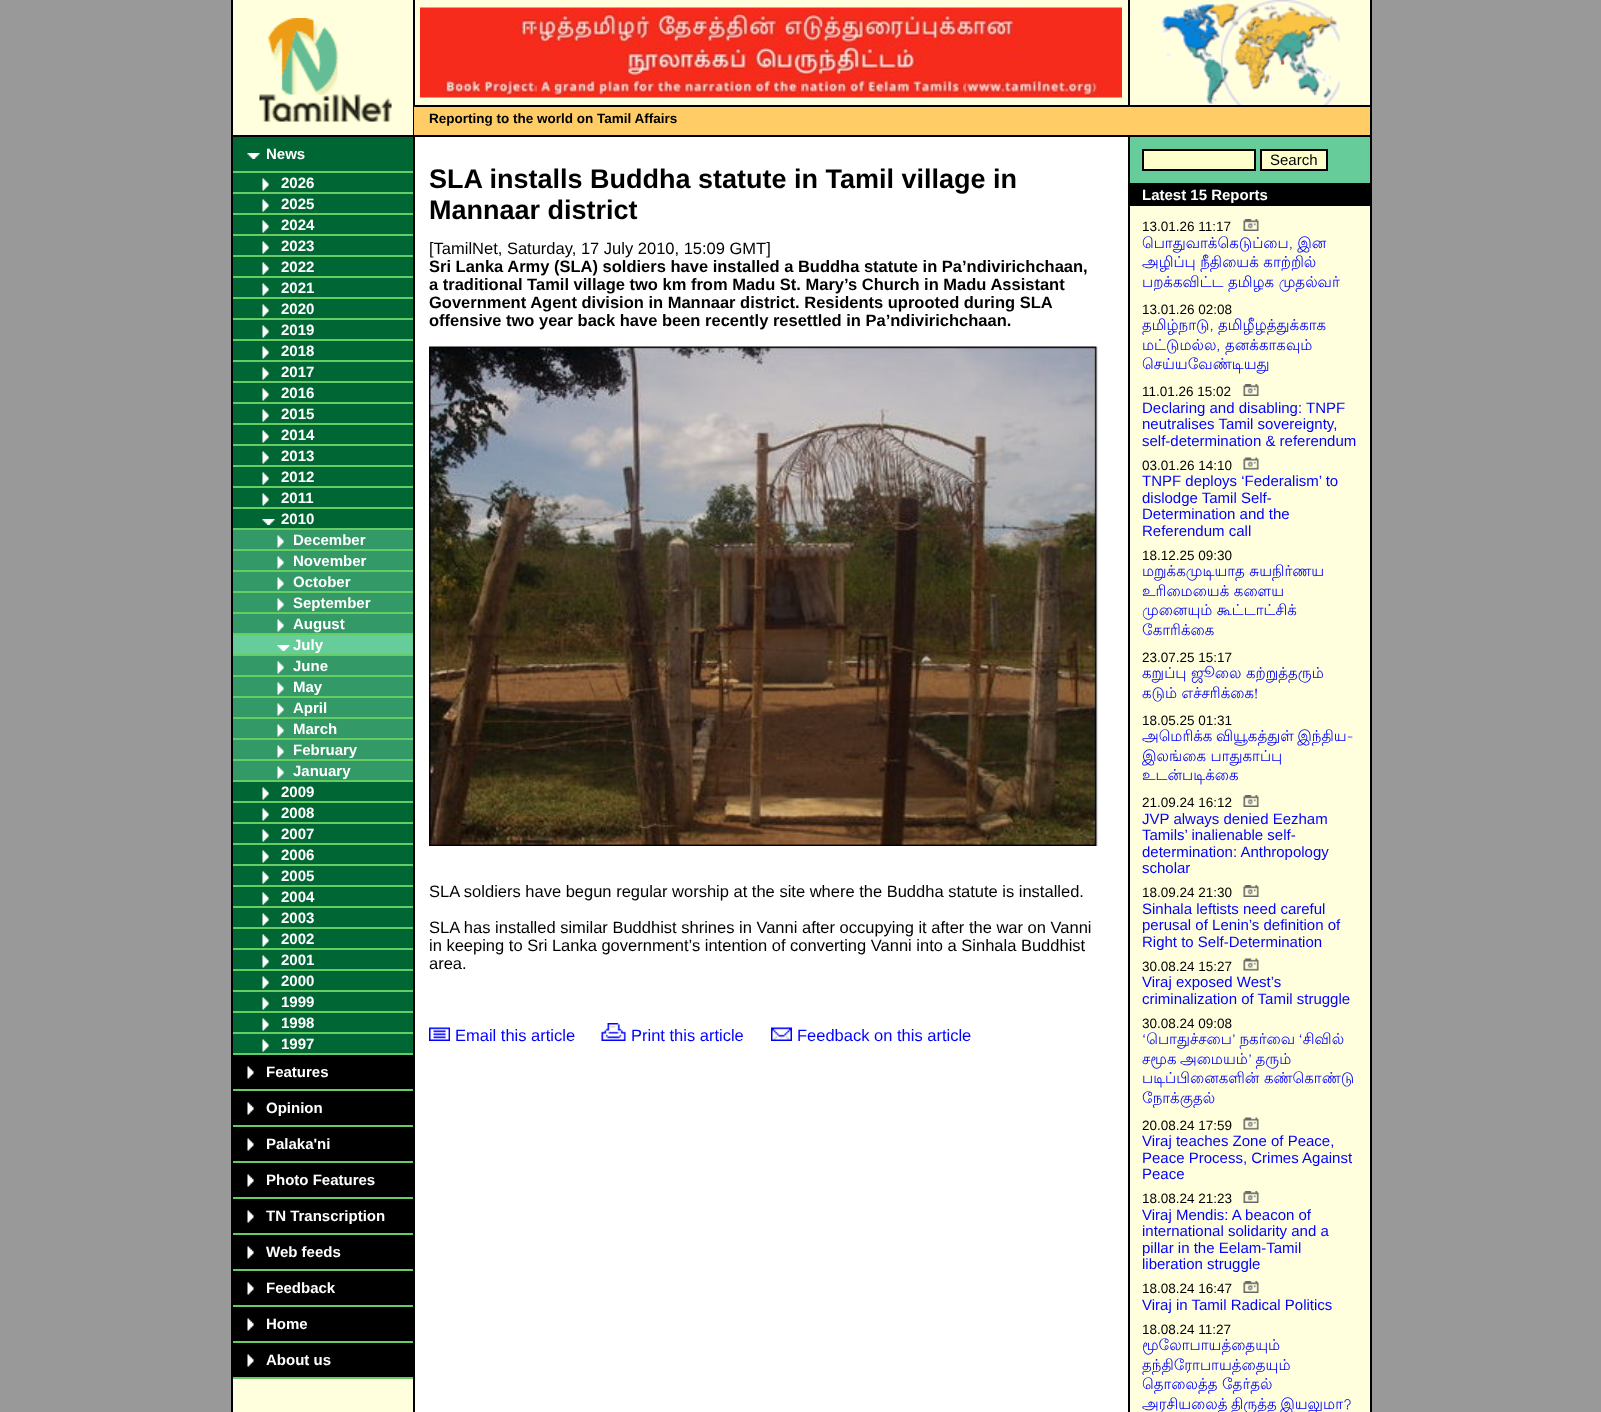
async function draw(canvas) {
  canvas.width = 1601;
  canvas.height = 1412;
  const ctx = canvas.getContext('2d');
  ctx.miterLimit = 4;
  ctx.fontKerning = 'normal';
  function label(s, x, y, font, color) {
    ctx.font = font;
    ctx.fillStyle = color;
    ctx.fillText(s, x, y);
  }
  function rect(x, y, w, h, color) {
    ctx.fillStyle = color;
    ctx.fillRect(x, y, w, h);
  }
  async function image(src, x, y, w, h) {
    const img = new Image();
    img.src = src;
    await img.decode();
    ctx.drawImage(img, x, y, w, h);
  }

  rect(0, 0, 1601, 1412, '#999');
  rect(233, 0, 1137, 1412, '#ffd');
  rect(1370, 0, 2, 1412, '#000');
  rect(231, 0, 2, 1412, '#000');
  rect(233, 135, 1137, 2, '#000');
  rect(413, 0, 2, 135, '#000');
  await image('assets/img1.png', 259, 18, 133, 104);
  rect(414, 105, 956, 2, '#000');
  rect(1128, 0, 2, 105, '#000');
  await image('assets/img2.png', 420, 7, 702, 91);
  await image('assets/img3.png', 1159, 0, 181, 105);
  rect(414, 107, 956, 28, '#fc6');
  label('Reporting to the world on Tamil Affairs', 429, 123, 'bold 13.5px Liberation Sans', '#000');
  rect(233, 137, 180, 34, '#063');
  await image('assets/img4.png', 247, 153, 13, 6);
  rect(233, 171, 180, 2, '#6c6');
  label('News', 266, 159, 'bold 15px Liberation Sans', '#fff');
  rect(233, 173, 180, 19, '#063');
  await image('assets/img5.png', 262, 178, 7, 13);
  rect(233, 192, 180, 2, '#6c6');
  label('2026', 281, 188, 'bold 15px Liberation Sans', '#fff');
  rect(233, 194, 180, 19, '#063');
  await image('assets/img5.png', 262, 199, 7, 13);
  rect(233, 213, 180, 2, '#6c6');
  label('2025', 281, 209, 'bold 15px Liberation Sans', '#fff');
  rect(233, 215, 180, 19, '#063');
  await image('assets/img5.png', 262, 220, 7, 13);
  rect(233, 234, 180, 2, '#6c6');
  label('2024', 281, 230, 'bold 15px Liberation Sans', '#fff');
  rect(233, 236, 180, 19, '#063');
  await image('assets/img5.png', 262, 241, 7, 13);
  rect(233, 255, 180, 2, '#6c6');
  label('2023', 281, 251, 'bold 15px Liberation Sans', '#fff');
  rect(233, 257, 180, 19, '#063');
  await image('assets/img5.png', 262, 262, 7, 13);
  rect(233, 276, 180, 2, '#6c6');
  label('2022', 281, 272, 'bold 15px Liberation Sans', '#fff');
  rect(233, 278, 180, 19, '#063');
  await image('assets/img5.png', 262, 283, 7, 13);
  rect(233, 297, 180, 2, '#6c6');
  label('2021', 281, 293, 'bold 15px Liberation Sans', '#fff');
  rect(233, 299, 180, 19, '#063');
  await image('assets/img5.png', 262, 304, 7, 13);
  rect(233, 318, 180, 2, '#6c6');
  label('2020', 281, 314, 'bold 15px Liberation Sans', '#fff');
  rect(233, 320, 180, 19, '#063');
  await image('assets/img5.png', 262, 325, 7, 13);
  rect(233, 339, 180, 2, '#6c6');
  label('2019', 281, 335, 'bold 15px Liberation Sans', '#fff');
  rect(233, 341, 180, 19, '#063');
  await image('assets/img5.png', 262, 346, 7, 13);
  rect(233, 360, 180, 2, '#6c6');
  label('2018', 281, 356, 'bold 15px Liberation Sans', '#fff');
  rect(233, 362, 180, 19, '#063');
  await image('assets/img5.png', 262, 367, 7, 13);
  rect(233, 381, 180, 2, '#6c6');
  label('2017', 281, 377, 'bold 15px Liberation Sans', '#fff');
  rect(233, 383, 180, 19, '#063');
  await image('assets/img5.png', 262, 388, 7, 13);
  rect(233, 402, 180, 2, '#6c6');
  label('2016', 281, 398, 'bold 15px Liberation Sans', '#fff');
  rect(233, 404, 180, 19, '#063');
  await image('assets/img5.png', 262, 409, 7, 13);
  rect(233, 423, 180, 2, '#6c6');
  label('2015', 281, 419, 'bold 15px Liberation Sans', '#fff');
  rect(233, 425, 180, 19, '#063');
  await image('assets/img5.png', 262, 430, 7, 13);
  rect(233, 444, 180, 2, '#6c6');
  label('2014', 281, 440, 'bold 15px Liberation Sans', '#fff');
  rect(233, 446, 180, 19, '#063');
  await image('assets/img5.png', 262, 451, 7, 13);
  rect(233, 465, 180, 2, '#6c6');
  label('2013', 281, 461, 'bold 15px Liberation Sans', '#fff');
  rect(233, 467, 180, 19, '#063');
  await image('assets/img5.png', 262, 472, 7, 13);
  rect(233, 486, 180, 2, '#6c6');
  label('2012', 281, 482, 'bold 15px Liberation Sans', '#fff');
  rect(233, 488, 180, 19, '#063');
  await image('assets/img5.png', 262, 493, 7, 13);
  rect(233, 507, 180, 2, '#6c6');
  label('2011', 281, 503, 'bold 15px Liberation Sans', '#fff');
  rect(233, 509, 180, 19, '#063');
  await image('assets/img6.png', 262, 519, 13, 6);
  rect(233, 528, 180, 2, '#6c6');
  label('2010', 281, 524, 'bold 15px Liberation Sans', '#fff');
  rect(233, 530, 180, 19, '#396');
  await image('assets/img7.png', 277, 535, 7, 13);
  rect(233, 549, 180, 2, '#6c6');
  label('December', 293, 545, 'bold 15px Liberation Sans', '#fff');
  rect(233, 551, 180, 19, '#396');
  await image('assets/img7.png', 277, 556, 7, 13);
  rect(233, 570, 180, 2, '#6c6');
  label('November', 293, 566, 'bold 15px Liberation Sans', '#fff');
  rect(233, 572, 180, 19, '#396');
  await image('assets/img7.png', 277, 577, 7, 13);
  rect(233, 591, 180, 2, '#6c6');
  label('October', 293, 587, 'bold 15px Liberation Sans', '#fff');
  rect(233, 593, 180, 19, '#396');
  await image('assets/img7.png', 277, 598, 7, 13);
  rect(233, 612, 180, 2, '#6c6');
  label('September', 293, 608, 'bold 15px Liberation Sans', '#fff');
  rect(233, 614, 180, 19, '#396');
  await image('assets/img7.png', 277, 619, 7, 13);
  rect(233, 633, 180, 2, '#6c6');
  label('August', 293, 629, 'bold 15px Liberation Sans', '#fff');
  rect(233, 635, 180, 19, '#6c9');
  await image('assets/img8.png', 277, 645, 13, 6);
  rect(233, 654, 180, 2, '#6c6');
  label('July', 293, 650, 'bold 15px Liberation Sans', '#fff');
  rect(233, 656, 180, 19, '#396');
  await image('assets/img7.png', 277, 661, 7, 13);
  rect(233, 675, 180, 2, '#6c6');
  label('June', 293, 671, 'bold 15px Liberation Sans', '#fff');
  rect(233, 677, 180, 19, '#396');
  await image('assets/img7.png', 277, 682, 7, 13);
  rect(233, 696, 180, 2, '#6c6');
  label('May', 293, 692, 'bold 15px Liberation Sans', '#fff');
  rect(233, 698, 180, 19, '#396');
  await image('assets/img7.png', 277, 703, 7, 13);
  rect(233, 717, 180, 2, '#6c6');
  label('April', 293, 713, 'bold 15px Liberation Sans', '#fff');
  rect(233, 719, 180, 19, '#396');
  await image('assets/img7.png', 277, 724, 7, 13);
  rect(233, 738, 180, 2, '#6c6');
  label('March', 293, 734, 'bold 15px Liberation Sans', '#fff');
  rect(233, 740, 180, 19, '#396');
  await image('assets/img7.png', 277, 745, 7, 13);
  rect(233, 759, 180, 2, '#6c6');
  label('February', 293, 755, 'bold 15px Liberation Sans', '#fff');
  rect(233, 761, 180, 19, '#396');
  await image('assets/img7.png', 277, 766, 7, 13);
  rect(233, 780, 180, 2, '#6c6');
  label('January', 293, 776, 'bold 15px Liberation Sans', '#fff');
  rect(233, 782, 180, 19, '#063');
  await image('assets/img5.png', 262, 787, 7, 13);
  rect(233, 801, 180, 2, '#6c6');
  label('2009', 281, 797, 'bold 15px Liberation Sans', '#fff');
  rect(233, 803, 180, 19, '#063');
  await image('assets/img5.png', 262, 808, 7, 13);
  rect(233, 822, 180, 2, '#6c6');
  label('2008', 281, 818, 'bold 15px Liberation Sans', '#fff');
  rect(233, 824, 180, 19, '#063');
  await image('assets/img5.png', 262, 829, 7, 13);
  rect(233, 843, 180, 2, '#6c6');
  label('2007', 281, 839, 'bold 15px Liberation Sans', '#fff');
  rect(233, 845, 180, 19, '#063');
  await image('assets/img5.png', 262, 850, 7, 13);
  rect(233, 864, 180, 2, '#6c6');
  label('2006', 281, 860, 'bold 15px Liberation Sans', '#fff');
  rect(233, 866, 180, 19, '#063');
  await image('assets/img5.png', 262, 871, 7, 13);
  rect(233, 885, 180, 2, '#6c6');
  label('2005', 281, 881, 'bold 15px Liberation Sans', '#fff');
  rect(233, 887, 180, 19, '#063');
  await image('assets/img5.png', 262, 892, 7, 13);
  rect(233, 906, 180, 2, '#6c6');
  label('2004', 281, 902, 'bold 15px Liberation Sans', '#fff');
  rect(233, 908, 180, 19, '#063');
  await image('assets/img5.png', 262, 913, 7, 13);
  rect(233, 927, 180, 2, '#6c6');
  label('2003', 281, 923, 'bold 15px Liberation Sans', '#fff');
  rect(233, 929, 180, 19, '#063');
  await image('assets/img5.png', 262, 934, 7, 13);
  rect(233, 948, 180, 2, '#6c6');
  label('2002', 281, 944, 'bold 15px Liberation Sans', '#fff');
  rect(233, 950, 180, 19, '#063');
  await image('assets/img5.png', 262, 955, 7, 13);
  rect(233, 969, 180, 2, '#6c6');
  label('2001', 281, 965, 'bold 15px Liberation Sans', '#fff');
  rect(233, 971, 180, 19, '#063');
  await image('assets/img5.png', 262, 976, 7, 13);
  rect(233, 990, 180, 2, '#6c6');
  label('2000', 281, 986, 'bold 15px Liberation Sans', '#fff');
  rect(233, 992, 180, 19, '#063');
  await image('assets/img5.png', 262, 997, 7, 13);
  rect(233, 1011, 180, 2, '#6c6');
  label('1999', 281, 1007, 'bold 15px Liberation Sans', '#fff');
  rect(233, 1013, 180, 19, '#063');
  await image('assets/img5.png', 262, 1018, 7, 13);
  rect(233, 1032, 180, 2, '#6c6');
  label('1998', 281, 1028, 'bold 15px Liberation Sans', '#fff');
  rect(233, 1034, 180, 19, '#063');
  await image('assets/img5.png', 262, 1039, 7, 13);
  rect(233, 1053, 180, 2, '#6c6');
  label('1997', 281, 1049, 'bold 15px Liberation Sans', '#fff');
  rect(233, 1055, 180, 34, '#000');
  await image('assets/img9.png', 247, 1066, 7, 13);
  rect(233, 1089, 180, 2, '#6c6');
  label('Features', 266, 1077, 'bold 15px Liberation Sans', '#fff');
  rect(233, 1091, 180, 34, '#000');
  await image('assets/img9.png', 247, 1102, 7, 13);
  rect(233, 1125, 180, 2, '#6c6');
  label('Opinion', 266, 1113, 'bold 15px Liberation Sans', '#fff');
  rect(233, 1127, 180, 34, '#000');
  await image('assets/img9.png', 247, 1138, 7, 13);
  rect(233, 1161, 180, 2, '#6c6');
  label('Palaka\'ni', 266, 1149, 'bold 15px Liberation Sans', '#fff');
  rect(233, 1163, 180, 34, '#000');
  await image('assets/img9.png', 247, 1174, 7, 13);
  rect(233, 1197, 180, 2, '#6c6');
  label('Photo Features', 266, 1185, 'bold 15px Liberation Sans', '#fff');
  rect(233, 1199, 180, 34, '#000');
  await image('assets/img9.png', 247, 1210, 7, 13);
  rect(233, 1233, 180, 2, '#6c6');
  label('TN Transcription', 266, 1221, 'bold 15px Liberation Sans', '#fff');
  rect(233, 1235, 180, 34, '#000');
  await image('assets/img9.png', 247, 1246, 7, 13);
  rect(233, 1269, 180, 2, '#6c6');
  label('Web feeds', 266, 1257, 'bold 15px Liberation Sans', '#fff');
  rect(233, 1271, 180, 34, '#000');
  await image('assets/img9.png', 247, 1282, 7, 13);
  rect(233, 1305, 180, 2, '#6c6');
  label('Feedback', 266, 1293, 'bold 15px Liberation Sans', '#fff');
  rect(233, 1307, 180, 34, '#000');
  await image('assets/img9.png', 247, 1318, 7, 13);
  rect(233, 1341, 180, 2, '#6c6');
  label('Home', 266, 1329, 'bold 15px Liberation Sans', '#fff');
  rect(233, 1343, 180, 34, '#000');
  await image('assets/img9.png', 247, 1354, 7, 13);
  rect(233, 1377, 180, 2, '#6c6');
  label('About us', 266, 1365, 'bold 15px Liberation Sans', '#fff');
  rect(415, 137, 713, 1275, '#fff');
  rect(1128, 137, 2, 1275, '#000');
  rect(413, 137, 2, 1275, '#000');
  label('SLA installs Buddha statute in Tamil village in', 429, 188, 'bold 27px Liberation Sans', '#000');
  label('Mannaar district', 429, 219, 'bold 27px Liberation Sans', '#000');
  label('[TamilNet, Saturday, 17 July 2010, 15:09 GMT]', 429, 254, '16.5px Liberation Sans', '#000');
  label('Sri Lanka Army (SLA) soldiers have installed a Buddha statute in Pa’ndivirichchaan,', 429, 272, 'bold 16.5px Liberation Sans', '#000');
  label('a traditional Tamil village two km from Madu St. Mary’s Church in Madu Assistant', 429, 290, 'bold 16.5px Liberation Sans', '#000');
  label('Government Agent division in Mannaar district. Residents uprooted during SLA', 429, 308, 'bold 16.5px Liberation Sans', '#000');
  label('offensive two year back have been recently resettled in Pa’ndivirichchaan.', 429, 326, 'bold 16.5px Liberation Sans', '#000');
  rect(1096, 347, 2, 499, '#e6e6e6');
  await image('assets/img10.png', 429, 346, 668, 500);
  label('SLA soldiers have begun regular worship at the site where the Buddha statute is installed.', 429, 897, '16.5px Liberation Sans', '#000');
  label('SLA has installed similar Buddhist shrines in Vanni after occupying it after the war on Vanni', 429, 933, '16.5px Liberation Sans', '#000');
  label('in keeping to Sri Lanka government’s intention of converting Vanni into a Sinhala Buddhist', 429, 951, '16.5px Liberation Sans', '#000');
  label('area.', 429, 969, '16.5px Liberation Sans', '#000');
  await image('assets/img11.png', 429, 1027, 21, 14);
  label('Email this article', 455, 1041, '16.5px Liberation Sans', '#00f');
  await image('assets/img12.png', 601, 1023, 25, 18);
  label('Print this article', 631, 1041, '16.5px Liberation Sans', '#00f');
  await image('assets/img13.png', 771, 1027, 21, 14);
  label('Feedback on this article', 797, 1041, '16.5px Liberation Sans', '#00f');
  rect(1130, 137, 240, 46, '#6c9');
  rect(1130, 183, 240, 23, '#000');
  ctx.fillStyle = '#ffc';
  ctx.beginPath();
  ctx.rect(1143, 150, 112, 20);
  ctx.fill();
  ctx.strokeStyle = '#000';
  ctx.lineWidth = 2;
  ctx.stroke();
  ctx.beginPath();
  ctx.rect(1261, 150, 66, 20);
  ctx.fill();
  ctx.stroke();
  label('Search', 1270, 165, '15px Liberation Sans', '#000');
  label('Latest 15 Reports', 1142, 200, 'bold 15px Liberation Sans', '#fff');
  label('13.01.26 11:17', 1142, 231, '13.5px Liberation Sans', '#000');
  await image('assets/img14.png', 1243, 219, 16, 12);
  label('பொதுவாக்கெடுப்பை, இன', 1142, 248, '15px Lohit Tamil', '#00f');
  label('அழிப்பு நீதியைக் காற்றில்', 1142, 267, '15px Lohit Tamil', '#00f');
  label('பறக்கவிட்ட தமிழக முதல்வர்', 1142, 287, '15px Lohit Tamil', '#00f');
  label('13.01.26 02:08', 1142, 314, '13.5px Liberation Sans', '#000');
  label('தமிழ்நாடு, தமிழீழத்துக்காக', 1142, 330, '15px Lohit Tamil', '#00f');
  label('மட்டுமல்ல, தனக்காகவும்', 1142, 350, '15px Lohit Tamil', '#00f');
  label('செய்யவேண்டியது', 1142, 369, '15px Lohit Tamil', '#00f');
  label('11.01.26 15:02', 1142, 396, '13.5px Liberation Sans', '#000');
  await image('assets/img14.png', 1243, 384, 16, 12);
  label('Declaring and disabling: TNPF', 1142, 413, '15px Liberation Sans', '#00f');
  label('neutralises Tamil sovereignty,', 1142, 429, '15px Liberation Sans', '#00f');
  label('self-determination & referendum', 1142, 446, '15px Liberation Sans', '#00f');
  label('03.01.26 14:10', 1142, 470, '13.5px Liberation Sans', '#000');
  await image('assets/img15.png', 1243, 457, 16, 13);
  label('TNPF deploys ‘Federalism’ to', 1142, 486, '15px Liberation Sans', '#00f');
  label('dislodge Tamil Self-', 1142, 503, '15px Liberation Sans', '#00f');
  label('Determination and the', 1142, 519, '15px Liberation Sans', '#00f');
  label('Referendum call', 1142, 536, '15px Liberation Sans', '#00f');
  label('18.12.25 09:30', 1142, 560, '13.5px Liberation Sans', '#000');
  label('மறுக்கமுடியாத சுயநிர்ணய', 1142, 576, '15px Lohit Tamil', '#00f');
  label('உரிமையைக் களைய', 1142, 596, '15px Lohit Tamil', '#00f');
  label('முனையும் கூட்டாட்சிக்', 1142, 615, '15px Lohit Tamil', '#00f');
  label('கோரிக்கை', 1142, 635, '15px Lohit Tamil', '#00f');
  label('23.07.25 15:17', 1142, 662, '13.5px Liberation Sans', '#000');
  label('கறுப்பு ஜூலை கற்றுத்தரும்', 1142, 678, '15px Lohit Tamil', '#00f');
  label('கடும் எச்சரிக்கை!', 1142, 698, '15px Lohit Tamil', '#00f');
  label('18.05.25 01:31', 1142, 725, '13.5px Liberation Sans', '#000');
  ctx.wordSpacing = '-1px';
  label('அமெரிக்க வியூகத்துள் இந்திய-', 1142, 741, '15px Lohit Tamil', '#00f');
  ctx.wordSpacing = '0px';
  label('இலங்கை பாதுகாப்பு', 1142, 761, '15px Lohit Tamil', '#00f');
  label('உடன்படிக்கை', 1142, 780, '15px Lohit Tamil', '#00f');
  label('21.09.24 16:12', 1142, 807, '13.5px Liberation Sans', '#000');
  await image('assets/img14.png', 1243, 795, 16, 12);
  label('JVP always denied Eezham', 1142, 824, '15px Liberation Sans', '#00f');
  label('Tamils’ inalienable self-', 1142, 840, '15px Liberation Sans', '#00f');
  label('determination: Anthropology', 1142, 857, '15px Liberation Sans', '#00f');
  label('scholar', 1142, 873, '15px Liberation Sans', '#00f');
  label('18.09.24 21:30', 1142, 897, '13.5px Liberation Sans', '#000');
  await image('assets/img14.png', 1243, 885, 16, 12);
  label('Sinhala leftists need careful', 1142, 914, '15px Liberation Sans', '#00f');
  label('perusal of Lenin’s definition of', 1142, 930, '15px Liberation Sans', '#00f');
  label('Right to Self-Determination', 1142, 947, '15px Liberation Sans', '#00f');
  label('30.08.24 15:27', 1142, 971, '13.5px Liberation Sans', '#000');
  await image('assets/img15.png', 1243, 958, 16, 13);
  label('Viraj exposed West’s', 1142, 987, '15px Liberation Sans', '#00f');
  label('criminalization of Tamil struggle', 1142, 1004, '15px Liberation Sans', '#00f');
  label('30.08.24 09:08', 1142, 1028, '13.5px Liberation Sans', '#000');
  ctx.wordSpacing = '-1px';
  label('‘பொதுச்சபை’ நகர்வை ‘சிவில்', 1142, 1044, '15px Lohit Tamil', '#00f');
  label('சமூக அமையம்’ தரும்', 1142, 1064, '15px Lohit Tamil', '#00f');
  ctx.wordSpacing = '0px';
  label('படிப்பினைகளின் கண்கொண்டு', 1142, 1083, '15px Lohit Tamil', '#00f');
  label('நோக்குதல்', 1142, 1103, '15px Lohit Tamil', '#00f');
  label('20.08.24 17:59', 1142, 1130, '13.5px Liberation Sans', '#000');
  await image('assets/img15.png', 1243, 1117, 16, 13);
  label('Viraj teaches Zone of Peace,', 1142, 1146, '15px Liberation Sans', '#00f');
  label('Peace Process, Crimes Against', 1142, 1163, '15px Liberation Sans', '#00f');
  label('Peace', 1142, 1179, '15px Liberation Sans', '#00f');
  label('18.08.24 21:23', 1142, 1203, '13.5px Liberation Sans', '#000');
  await image('assets/img14.png', 1243, 1191, 16, 12);
  label('Viraj Mendis: A beacon of', 1142, 1220, '15px Liberation Sans', '#00f');
  label('international solidarity and a', 1142, 1236, '15px Liberation Sans', '#00f');
  label('pillar in the Eelam-Tamil', 1142, 1253, '15px Liberation Sans', '#00f');
  label('liberation struggle', 1142, 1269, '15px Liberation Sans', '#00f');
  label('18.08.24 16:47', 1142, 1293, '13.5px Liberation Sans', '#000');
  await image('assets/img14.png', 1243, 1281, 16, 12);
  label('Viraj in Tamil Radical Politics', 1142, 1310, '15px Liberation Sans', '#00f');
  label('18.08.24 11:27', 1142, 1334, '13.5px Liberation Sans', '#000');
  label('மூலோபாயத்தையும்', 1142, 1350, '15px Lohit Tamil', '#00f');
  label('தந்திரோபாயத்தையும்', 1142, 1370, '15px Lohit Tamil', '#00f');
  label('தொலைத்த தேர்தல்', 1142, 1389, '15px Lohit Tamil', '#00f');
  ctx.wordSpacing = '-1px';
  label('அரசியலைத் திருத்த இயலுமா?', 1142, 1409, '15px Lohit Tamil', '#00f');
}

draw(document.querySelector('canvas'));
